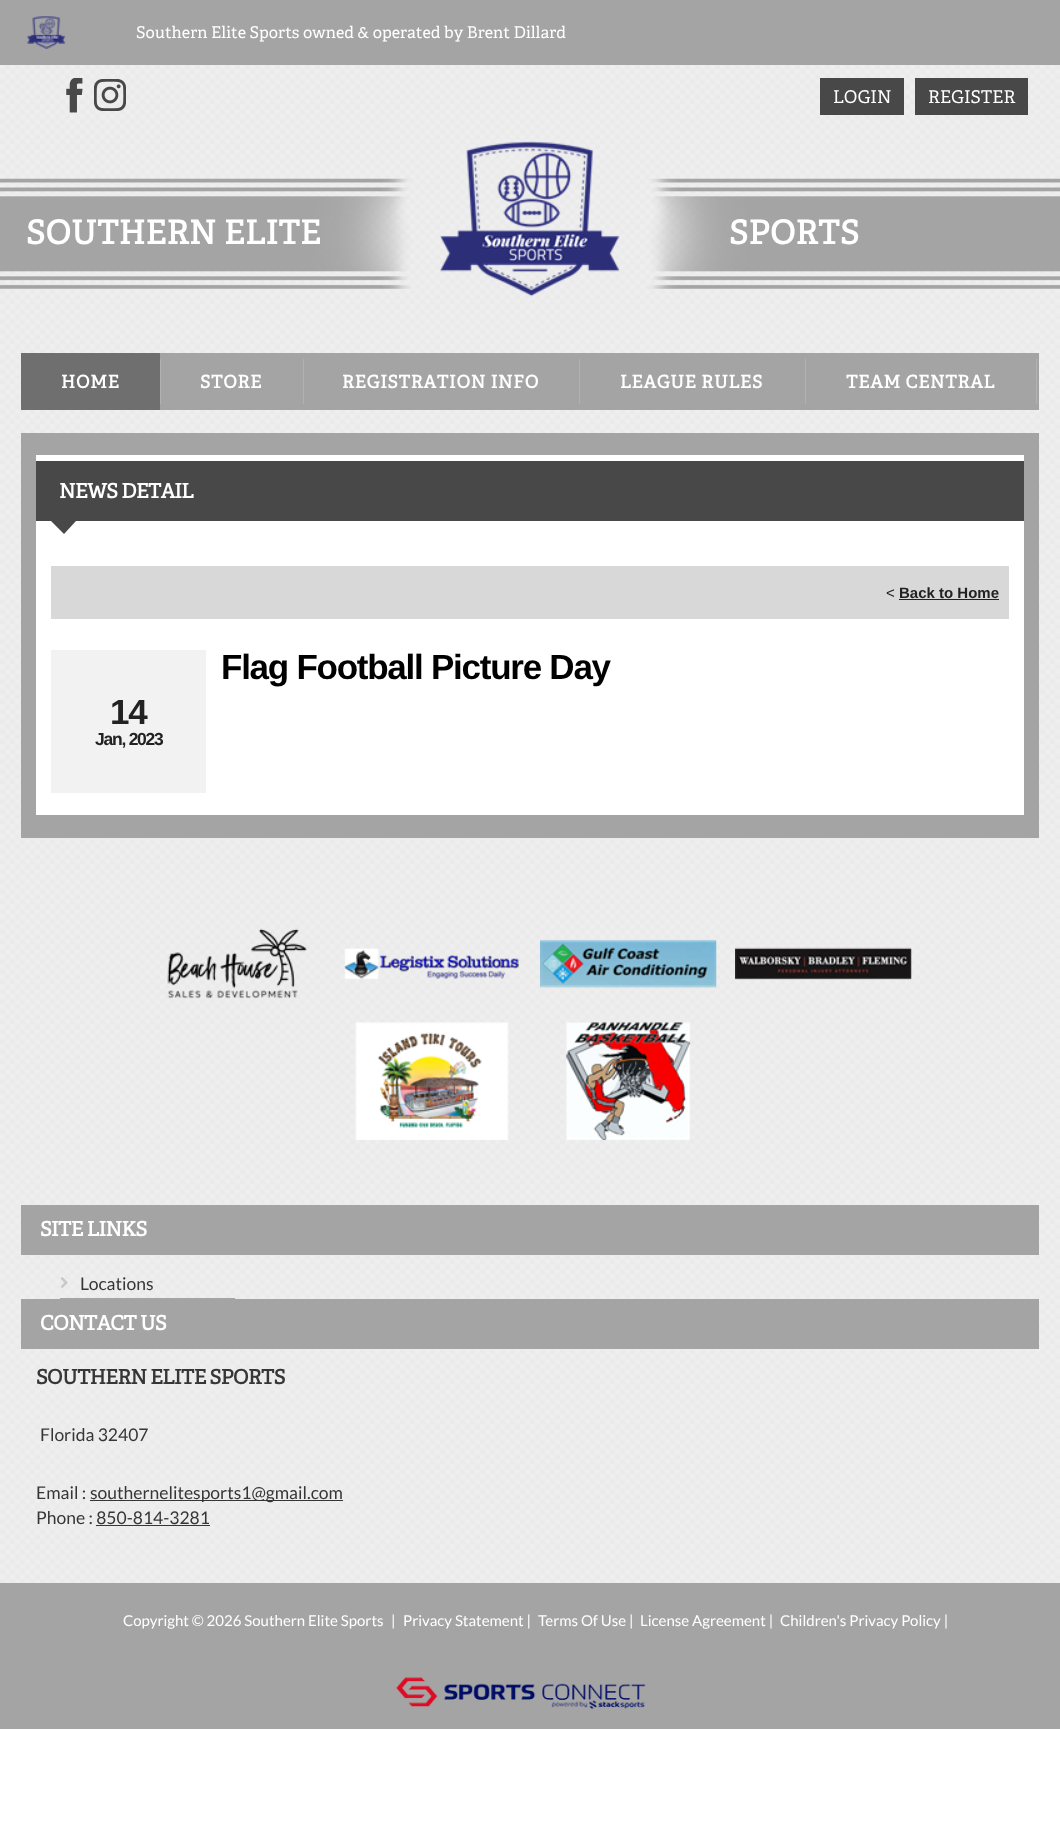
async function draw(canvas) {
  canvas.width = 1060;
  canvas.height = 1844;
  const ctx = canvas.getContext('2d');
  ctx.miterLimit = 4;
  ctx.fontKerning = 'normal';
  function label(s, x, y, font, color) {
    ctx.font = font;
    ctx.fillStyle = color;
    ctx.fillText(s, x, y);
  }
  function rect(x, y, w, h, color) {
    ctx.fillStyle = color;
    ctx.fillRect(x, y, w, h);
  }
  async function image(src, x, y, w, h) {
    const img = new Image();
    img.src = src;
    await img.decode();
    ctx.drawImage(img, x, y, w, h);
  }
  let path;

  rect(0, 0, 1060, 1844, '#fff');
  await image('assets/img1.png', 0, 65, 1060, 1518);
  rect(0, 0, 1060, 65, '#a4a4a4');
  await image('assets/img2.png', 27, 16, 39, 33);
  label('Southern Elite Sports owned & operated by Brent Dillard', 136, 38, '16.25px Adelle', '#fff');
  await image('assets/img3.png', 66, 78, 17, 35);
  await image('assets/img4.png', 94, 79, 32, 32);
  rect(820, 78, 84, 37, '#484848');
  label('LOGIN', 833, 103, '17.5px Adelle', '#fff');
  rect(915, 78, 113, 37, '#484848');
  label('REGISTER', 928, 103, '17.5px Adelle', '#fff');
  await image('assets/img5.png', 0, 178, 1060, 111);
  await image('assets/img6.png', 440, 141, 180, 156);
  ctx.letterSpacing = '0.4px';
  label('SOUTHERN ELITE', 26, 244, 'bold 32.5px Adelle', '#fff');
  label('SPORTS', 729, 244, 'bold 32.5px Adelle', '#fff');
  rect(160, 353, 879, 57, '#a4a4a4');
  rect(21, 353, 139, 57, '#706f6f');
  ctx.letterSpacing = '0.75px';
  label('HOME', 61, 388, 'bold 17.5px Adelle', '#fff');
  rect(160, 359, 1, 45, '#b2b2b2');
  label('STORE', 200, 388, 'bold 17.5px Adelle', '#fff');
  rect(303, 359, 1, 45, '#b2b2b2');
  label('REGISTRATION INFO', 342, 388, 'bold 17.5px Adelle', '#fff');
  rect(579, 359, 1, 45, '#b2b2b2');
  label('LEAGUE RULES', 620, 388, 'bold 17.5px Adelle', '#fff');
  rect(805, 359, 1, 45, '#b2b2b2');
  label('TEAM CENTRAL', 846, 388, 'bold 17.5px Adelle', '#fff');
  rect(1036, 359, 1, 45, '#b2b2b2');
  rect(21, 433, 1018, 405, '#a4a4a4');
  rect(36, 461, 988, 60, '#484848');
  rect(36, 455, 988, 6, '#fff');
  ctx.letterSpacing = '-0.6px';
  label('NEWS DETAIL', 59, 498, 'bold 20px Adelle', '#fff');
  rect(36, 521, 988, 294, '#fff');
  ctx.fillStyle = '#484848';
  path = new Path2D('M51 521H76L64 534Z');
  ctx.fill(path);
  rect(51, 566, 958, 53, '#d8d8d8');
  ctx.letterSpacing = '0px';
  label('<', 886, 598, '15px Liberation Sans', '#222');
  label('Back to Home', 899, 598, 'bold 15px Liberation Sans', '#222');
  rect(899, 599, 100, 1, '#222');
  ctx.letterSpacing = '-1.25px';
  label('Flag Football Picture Day', 221, 679, 'bold 35px Liberation Sans', '#000');
  rect(51, 650, 155, 143, '#f2f2f2');
  label('14', 110, 724, 'bold 35px Liberation Sans', '#222');
  label('Jan, 2023', 95, 745, 'bold 17.5px Liberation Sans', '#222');
  await image('assets/img7.png', 167, 928, 140, 71);
  await image('assets/img8.png', 344, 948, 175, 31);
  await image('assets/img9.png', 540, 939, 177, 49);
  await image('assets/img10.png', 735, 947, 177, 33);
  await image('assets/img11.png', 355, 1022, 154, 118);
  await image('assets/img12.png', 566, 1022, 125, 118);
  rect(21, 1205, 1018, 50, '#a4a4a4');
  ctx.letterSpacing = '-0.6px';
  label('SITE LINKS', 40, 1236, 'bold 20px Adelle', '#fff');
  rect(60, 1298, 175, 1, '#a4a4a4');
  await image('assets/img13.png', 60, 1277, 8, 11);
  ctx.letterSpacing = '0px';
  label('Locations', 80, 1290, '17.5px Lato', '#363636');
  rect(21, 1299, 1018, 50, '#a4a4a4');
  ctx.letterSpacing = '-0.6px';
  label('CONTACT US', 40, 1330, 'bold 20px Adelle', '#fff');
  label('SOUTHERN ELITE SPORTS', 36, 1384, 'bold 20px Adelle', '#363636');
  ctx.letterSpacing = '0px';
  label('Florida 32407', 40, 1441, '17.5px Lato', '#363636');
  label('Email :', 36, 1499, '17.5px Lato', '#363636');
  rect(90, 1500, 253, 1, '#363636');
  label('southernelitesports1@gmail.com', 90, 1499, '17.5px Lato', '#363636');
  label('Phone : 850-814-3281', 36, 1524, '17.5px Lato', '#363636');
  rect(96, 1525, 114, 1, '#363636');
  rect(0, 1583, 1060, 146, '#a4a4a4');
  label('Copyright © 2026 Southern Elite Sports', 123, 1626, '15px Lato', '#fff');
  label('|', 391, 1626, '15px Lato', '#fff');
  label('Privacy Statement |', 403, 1626, '15px Lato', '#fff');
  label('Terms Of Use |', 538, 1626, '15px Lato', '#fff');
  label('License Agreement |', 640, 1626, '15px Lato', '#fff');
  label('Children\'s Privacy Policy |', 780, 1626, '15px Lato', '#fff');
  await image('assets/img14.png', 396, 1677, 250, 32);
}

draw(document.querySelector('canvas'));
